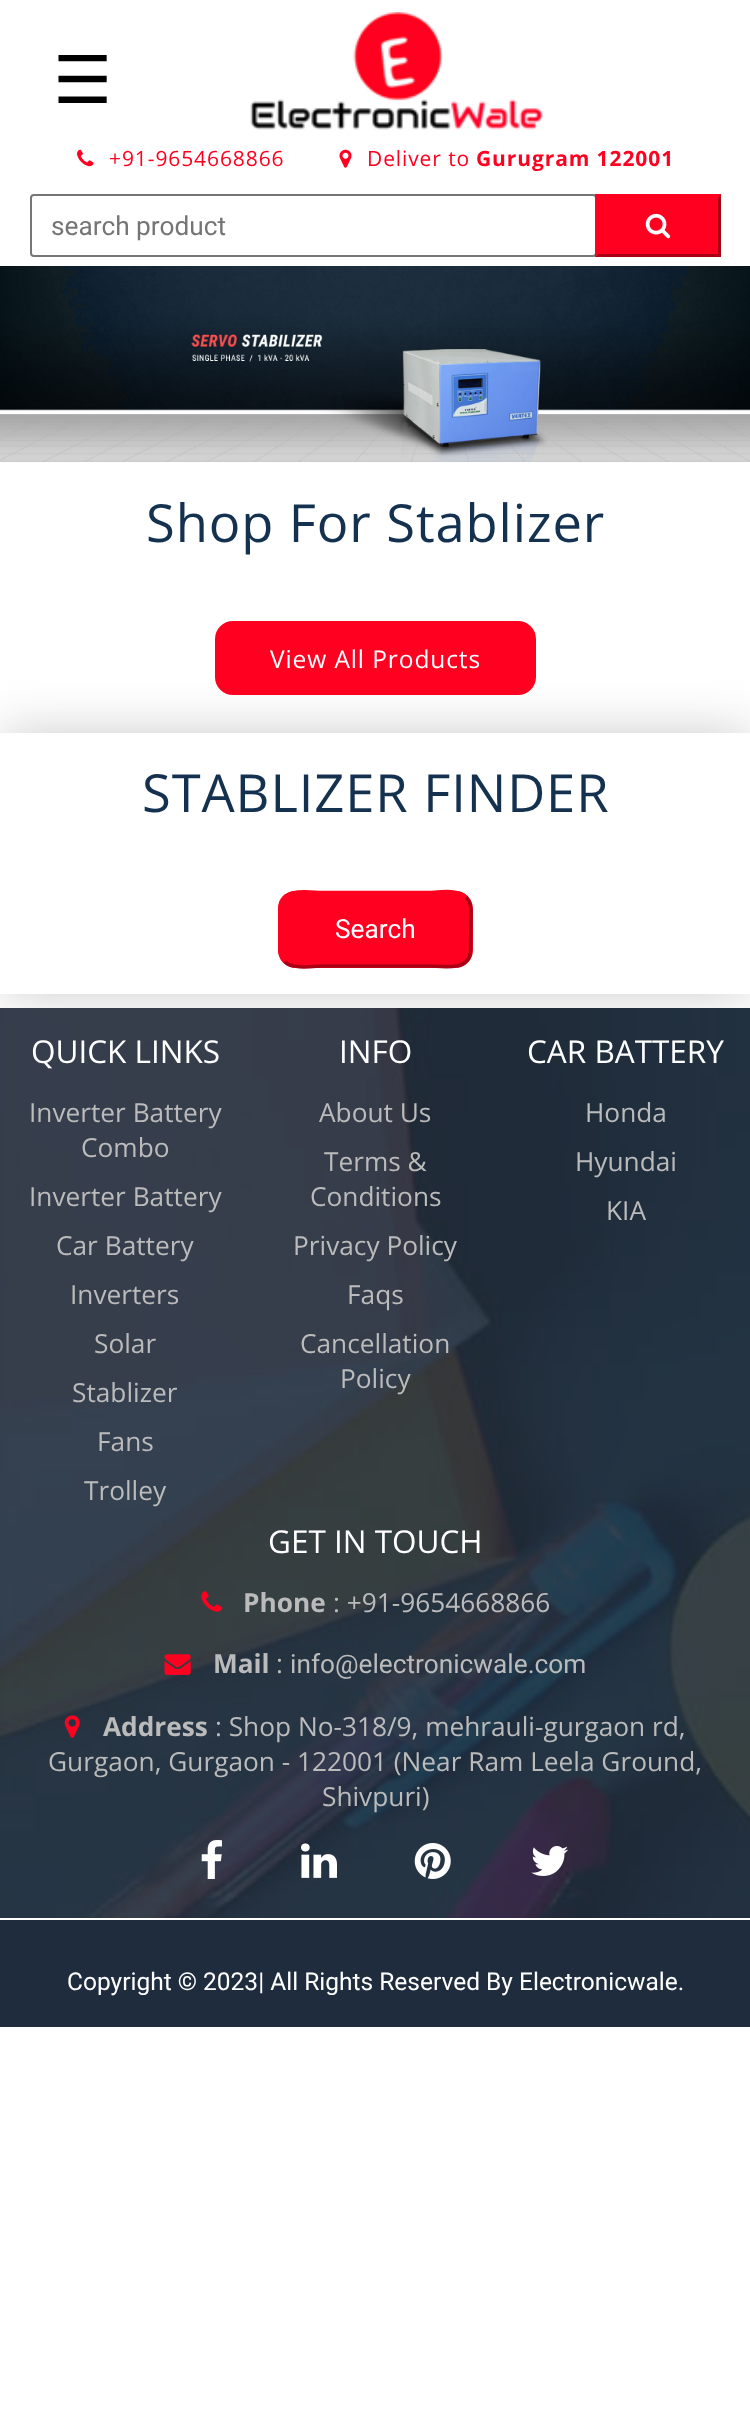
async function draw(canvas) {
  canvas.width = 750;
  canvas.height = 2422;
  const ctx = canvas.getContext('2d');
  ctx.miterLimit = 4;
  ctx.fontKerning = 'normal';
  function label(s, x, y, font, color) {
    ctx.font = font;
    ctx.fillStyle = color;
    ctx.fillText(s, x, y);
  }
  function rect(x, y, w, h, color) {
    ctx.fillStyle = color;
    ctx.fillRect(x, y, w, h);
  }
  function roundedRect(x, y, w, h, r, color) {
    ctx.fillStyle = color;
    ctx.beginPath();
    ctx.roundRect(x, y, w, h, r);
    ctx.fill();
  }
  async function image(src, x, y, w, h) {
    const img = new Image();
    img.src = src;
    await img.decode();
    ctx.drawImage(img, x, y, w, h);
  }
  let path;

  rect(0, 0, 750, 2422, '#fff');
  ctx.letterSpacing = '0.9px';
  label('☰', 53, 103, '66px DejaVu Sans', '#000');
  await image('assets/img1.png', 250, 12, 293, 118);
  await image('assets/img2.png', 77, 149, 17, 18);
  label('+91-9654668866', 109, 166, '21px Open Sans', '#ff0021');
  await image('assets/img3.png', 339, 149, 13, 19);
  label('Deliver to', 367, 166, '21px Open Sans', '#ff0021');
  label('Gurugram 122001', 476, 166, 'bold 21px Open Sans', '#ff0021');
  ctx.beginPath();
  ctx.roundRect(31, 195, 565, 61, 3);
  ctx.strokeStyle = '#767676';
  ctx.lineWidth = 2;
  ctx.stroke();
  ctx.letterSpacing = '0px';
  label('search product', 51, 235, '26.25px Roboto', '#757575');
  rect(595, 194, 126, 63, '#ff0021');
  ctx.fillStyle = '#aa0016';
  path = new Path2D('M721 194V257L718 254V198Z');
  ctx.fill(path);
  path = new Path2D('M721 257H595L598 254H718Z');
  ctx.fill(path);
  ctx.fillStyle = '#ff0021';
  path = new Path2D('M595 257V194L598 198V254Z');
  ctx.fill(path);
  await image('assets/img4.png', 645, 213, 26, 26);
  await image('assets/img5.png', 0, 266, 750, 196);
  ctx.letterSpacing = '0.9px';
  label('Shop For Stablizer', 146, 542, '52.5px Open Sans', '#143250');
  ctx.save();
  path = new Path2D('M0 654H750V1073H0ZM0 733H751V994H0Z');
  ctx.clip(path, 'evenodd');
  ctx.fillStyle = '#ccc';
  ctx.filter = 'blur(26px)';
  ctx.beginPath();
  ctx.rect(0, 733, 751, 261);
  ctx.fill();
  ctx.filter = 'none';
  ctx.restore();
  ctx.fillStyle = '#ff0021';
  ctx.beginPath();
  ctx.roundRect(216, 622, 319, 72, 17);
  ctx.fill();
  ctx.strokeStyle = '#ff0021';
  ctx.stroke();
  label('View All Products', 270, 668, '24.5px Open Sans', '#fff');
  label('STABLIZER FINDER', 142, 812, '52.5px Open Sans', '#143250');
  roundedRect(278, 891, 195, 77, 18, '#ff0021');
  path = new Path2D('M466 897C471 902 471 908.5 471 915L470.5 952C468.5 972 440.5 966 428.5 966H322.5C315 966 293 970 284.5 961.5');
  ctx.strokeStyle = '#aa0016';
  ctx.lineWidth = 3.5;
  ctx.stroke(path);
  path = new Path2D('M284.5 961.5C279.5 956.5 280 950 280 943V906.5C282 886.5 310.5 892.5 322.5 892.5H428.5C436 892.5 457.5 888.5 466 897');
  ctx.strokeStyle = '#ff0021';
  ctx.stroke(path);
  ctx.letterSpacing = '0px';
  label('Search', 335, 938, '26.25px Roboto', '#fff');
  await image('assets/img6.png', 0, 1008, 750, 910);
  label('QUICK LINKS', 31, 1063, '31.5px Open Sans', '#fff');
  label('Inverter Battery', 29, 1122, '26.25px Open Sans', '#bbb');
  label('Combo', 81, 1157, '26.25px Open Sans', '#bbb');
  label('Inverter Battery', 29, 1206, '26.25px Open Sans', '#bbb');
  label('Car Battery', 56, 1255, '26.25px Open Sans', '#bbb');
  label('Inverters', 70, 1304, '26.25px Open Sans', '#bbb');
  label('Solar', 94, 1353, '26.25px Open Sans', '#bbb');
  label('Stablizer', 72, 1402, '26.25px Open Sans', '#bbb');
  label('Fans', 97, 1451, '26.25px Open Sans', '#bbb');
  label('Trolley', 84, 1500, '26.25px Open Sans', '#bbb');
  label('INFO', 339, 1063, '31.5px Open Sans', '#fff');
  label('About Us', 319, 1122, '26.25px Open Sans', '#bbb');
  label('Terms &', 324, 1171, '26.25px Open Sans', '#bbb');
  label('Conditions', 310, 1206, '26.25px Open Sans', '#bbb');
  label('Privacy Policy', 293, 1255, '26.25px Open Sans', '#bbb');
  label('Faqs', 347, 1304, '26.25px Open Sans', '#bbb');
  label('Cancellation', 300, 1353, '26.25px Open Sans', '#bbb');
  label('Policy', 340, 1388, '26.25px Open Sans', '#bbb');
  label('CAR BATTERY', 527, 1063, '31.5px Open Sans', '#fff');
  label('Honda', 585, 1122, '26.25px Open Sans', '#bbb');
  label('Hyundai', 575, 1171, '26.25px Open Sans', '#bbb');
  label('KIA', 606, 1220, '26.25px Open Sans', '#bbb');
  label('GET IN TOUCH', 268, 1553, '31.5px Open Sans', '#fff');
  await image('assets/img7.png', 201, 1591, 21, 21);
  label('Phone', 243, 1612, 'bold 26.25px Open Sans', '#bbb');
  label(': +91-9654668866', 333, 1612, '26.25px Open Sans', '#bbb');
  await image('assets/img8.png', 164, 1654, 27, 21);
  label('Mail', 213, 1673, 'bold 26.25px Open Sans', '#bbb');
  label(':', 276, 1673, '26.25px Open Sans', '#bbb');
  label('info@electronicwale.com', 290, 1673, '26.25px Roboto', '#bbb');
  await image('assets/img9.png', 64, 1715, 16, 23);
  label('Address', 103, 1736, 'bold 26.25px Open Sans', '#bbb');
  label(': Shop No-318/9, mehrauli-gurgaon rd,', 215, 1736, '26.25px Open Sans', '#bbb');
  label('Gurgaon, Gurgaon - 122001 (Near Ram Leela Ground,', 48, 1771, '26.25px Open Sans', '#bbb');
  label('Shivpuri)', 322, 1806, '26.25px Open Sans', '#bbb');
  await image('assets/img10.png', 201, 1840, 21, 39);
  await image('assets/img11.png', 301, 1843, 36, 35);
  await image('assets/img12.png', 414, 1843, 37, 36);
  await image('assets/img13.png', 531, 1846, 37, 30);
  rect(0, 1920, 750, 107, '#1f2c3d');
  label('Copyright © 2023| All Rights Reserved By Electronicwale.', 67, 1990, '24.5px Roboto', '#fff');
}

draw(document.querySelector('canvas'));
